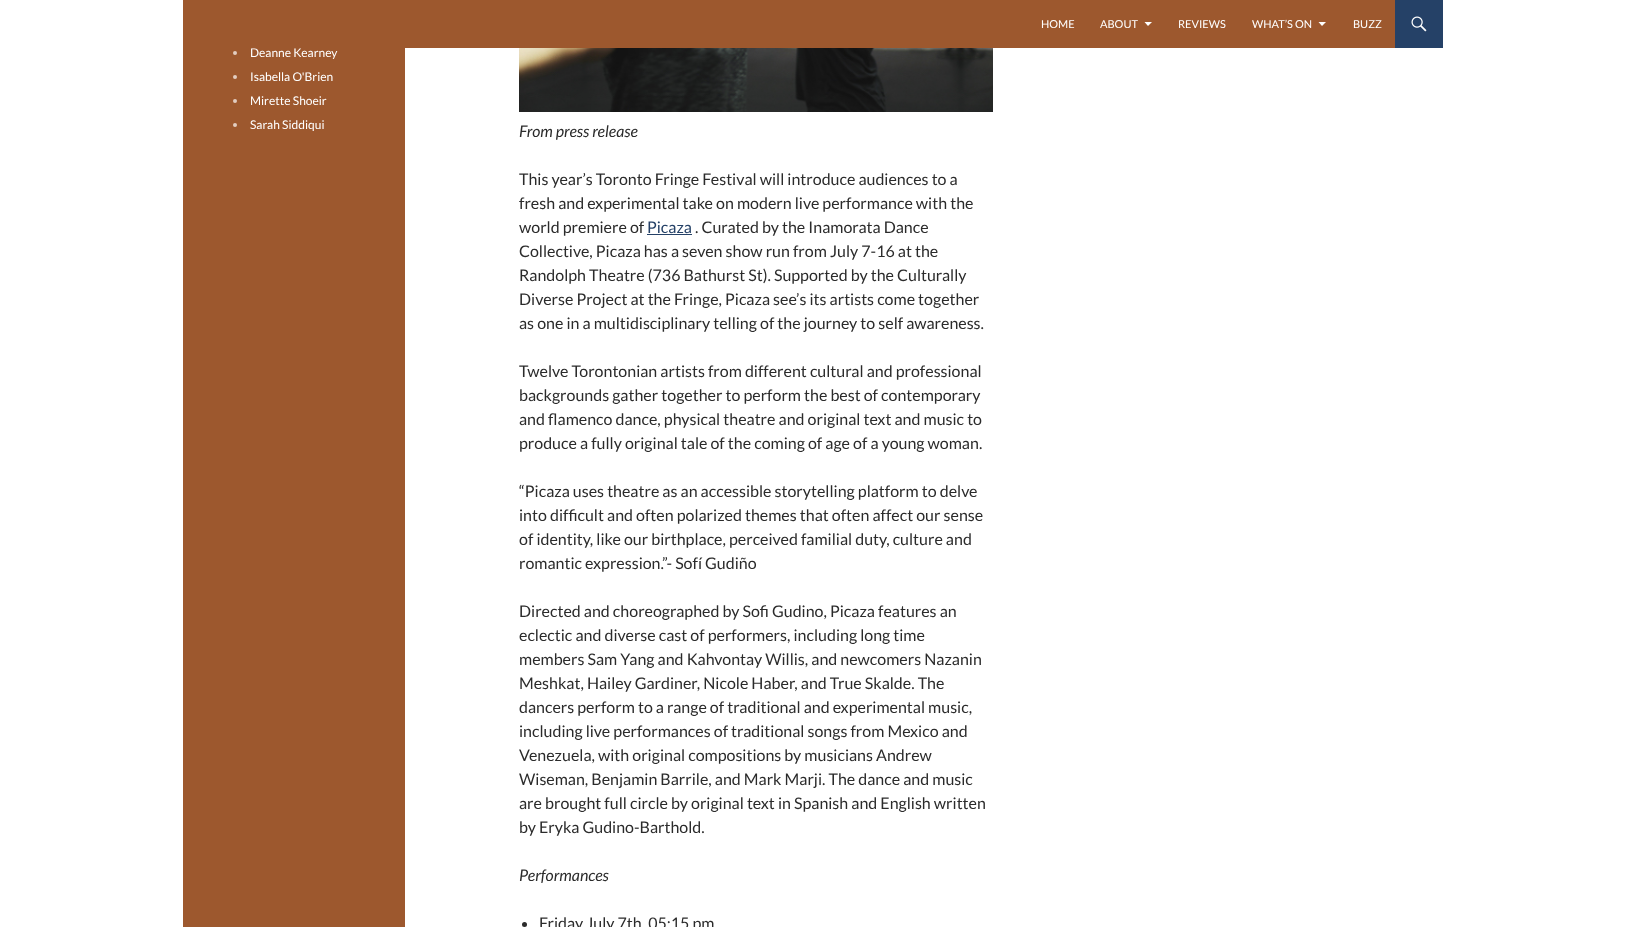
async function draw(canvas) {
  canvas.width = 1625;
  canvas.height = 927;
  const ctx = canvas.getContext('2d');
  ctx.miterLimit = 4;
  ctx.fontKerning = 'normal';
  function label(s, x, y, font, color) {
    ctx.font = font;
    ctx.fillStyle = color;
    ctx.fillText(s, x, y);
  }
  function rect(x, y, w, h, color) {
    ctx.fillStyle = color;
    ctx.fillRect(x, y, w, h);
  }
  async function image(src, x, y, w, h) {
    const img = new Image();
    img.src = src;
    await img.decode();
    ctx.drawImage(img, x, y, w, h);
  }
  let path;

  rect(0, 0, 1625, 927, '#fff');
  rect(183, 0, 1212, 48, '#9d582e');
  label('HOME', 1041, 28, '11px Lato', '#fff');
  label('ABOUT', 1100, 28, '11px Lato', '#fff');
  path = new Path2D('M1144.5 22L1148 26L1152 22Z');
  ctx.fill(path);
  label('REVIEWS', 1178, 28, '11px Lato', '#fff');
  label('WHAT’S ON', 1252, 28, '11px Lato', '#fff');
  path = new Path2D('M1318.5 22L1322 26L1326 22Z');
  ctx.fill(path);
  label('BUZZ', 1353, 28, '11px Lato', '#fff');
  rect(1395, 0, 48, 48, '#254167');
  await image('assets/img1.png', 1411, 16, 16, 16);
  rect(183, 48, 222, 879, '#9d582e');
  ctx.fillStyle = '#e2cdc0';
  ctx.beginPath();
  ctx.arc(235, 53, 2, 0, 2 * Math.PI);
  ctx.fill();
  label('Deanne Kearney', 250, 57, '12px Lato', '#fff');
  ctx.fillStyle = '#e2cdc0';
  ctx.beginPath();
  ctx.arc(235, 77, 2, 0, 2 * Math.PI);
  ctx.fill();
  label('Isabella O\'Brien', 250, 81, '12px Lato', '#fff');
  ctx.fillStyle = '#e2cdc0';
  ctx.beginPath();
  ctx.arc(235, 101, 2, 0, 2 * Math.PI);
  ctx.fill();
  label('Mirette Shoeir', 250, 105, '12px Lato', '#fff');
  ctx.fillStyle = '#e2cdc0';
  ctx.beginPath();
  ctx.arc(235, 125, 2, 0, 2 * Math.PI);
  ctx.fill();
  label('Sarah Siddiqui', 250, 129, '12px Lato', '#fff');
  await image('assets/img2.png', 519, 48, 474, 64);
  label('From press release', 519, 137, 'italic 16px Lato', '#2b2b2b');
  label('This year’s Toronto Fringe Festival will introduce audiences to a', 519, 185, '16px Lato', '#2b2b2b');
  label('fresh and experimental take on modern live performance with the', 519, 209, '16px Lato', '#2b2b2b');
  label('world premiere of', 519, 233, '16px Lato', '#2b2b2b');
  label('Picaza', 647, 233, '16px Lato', '#254167');
  rect(647, 234, 45, 1, '#254167');
  label('. Curated by the Inamorata Dance', 695, 233, '16px Lato', '#2b2b2b');
  label('Collective, Picaza has a seven show run from July 7-16 at the', 519, 257, '16px Lato', '#2b2b2b');
  label('Randolph Theatre (736 Bathurst St). Supported by the Culturally', 519, 281, '16px Lato', '#2b2b2b');
  label('Diverse Project at the Fringe, Picaza see’s its artists come together', 519, 305, '16px Lato', '#2b2b2b');
  label('as one in a multidisciplinary telling of the journey to self awareness.', 519, 329, '16px Lato', '#2b2b2b');
  label('Twelve Torontonian artists from different cultural and professional', 519, 377, '16px Lato', '#2b2b2b');
  label('backgrounds gather together to perform the best of contemporary', 519, 401, '16px Lato', '#2b2b2b');
  label('and flamenco dance, physical theatre and original text and music to', 519, 425, '16px Lato', '#2b2b2b');
  label('produce a fully original tale of the coming of age of a young woman.', 519, 449, '16px Lato', '#2b2b2b');
  label('“Picaza uses theatre as an accessible storytelling platform to delve', 519, 497, '16px Lato', '#2b2b2b');
  label('into difficult and often polarized themes that often affect our sense', 519, 521, '16px Lato', '#2b2b2b');
  label('of identity, like our birthplace, perceived familial duty, culture and', 519, 545, '16px Lato', '#2b2b2b');
  label('romantic expression.”- Sofí Gudiño', 519, 569, '16px Lato', '#2b2b2b');
  label('Directed and choreographed by Sofi Gudino, Picaza features an', 519, 617, '16px Lato', '#2b2b2b');
  label('eclectic and diverse cast of performers, including long time', 519, 641, '16px Lato', '#2b2b2b');
  label('members Sam Yang and Kahvontay Willis, and newcomers Nazanin', 519, 665, '16px Lato', '#2b2b2b');
  label('Meshkat, Hailey Gardiner, Nicole Haber, and True Skalde. The', 519, 689, '16px Lato', '#2b2b2b');
  label('dancers perform to a range of traditional and experimental music,', 519, 713, '16px Lato', '#2b2b2b');
  label('including live performances of traditional songs from Mexico and', 519, 737, '16px Lato', '#2b2b2b');
  label('Venezuela, with original compositions by musicians Andrew', 519, 761, '16px Lato', '#2b2b2b');
  label('Wiseman, Benjamin Barrile, and Mark Marji. The dance and music', 519, 785, '16px Lato', '#2b2b2b');
  label('are brought full circle by original text in Spanish and English written', 519, 809, '16px Lato', '#2b2b2b');
  label('by Eryka Gudino-Barthold.', 519, 833, '16px Lato', '#2b2b2b');
  label('Performances', 519, 881, 'italic 16px Lato', '#2b2b2b');
  ctx.beginPath();
  ctx.arc(524.5, 924.5, 2.5, 0, 2 * Math.PI);
  ctx.fill();
  label('Friday July 7th, 05:15 pm', 539, 929, '16px Lato', '#2b2b2b');
}

draw(document.querySelector('canvas'));
